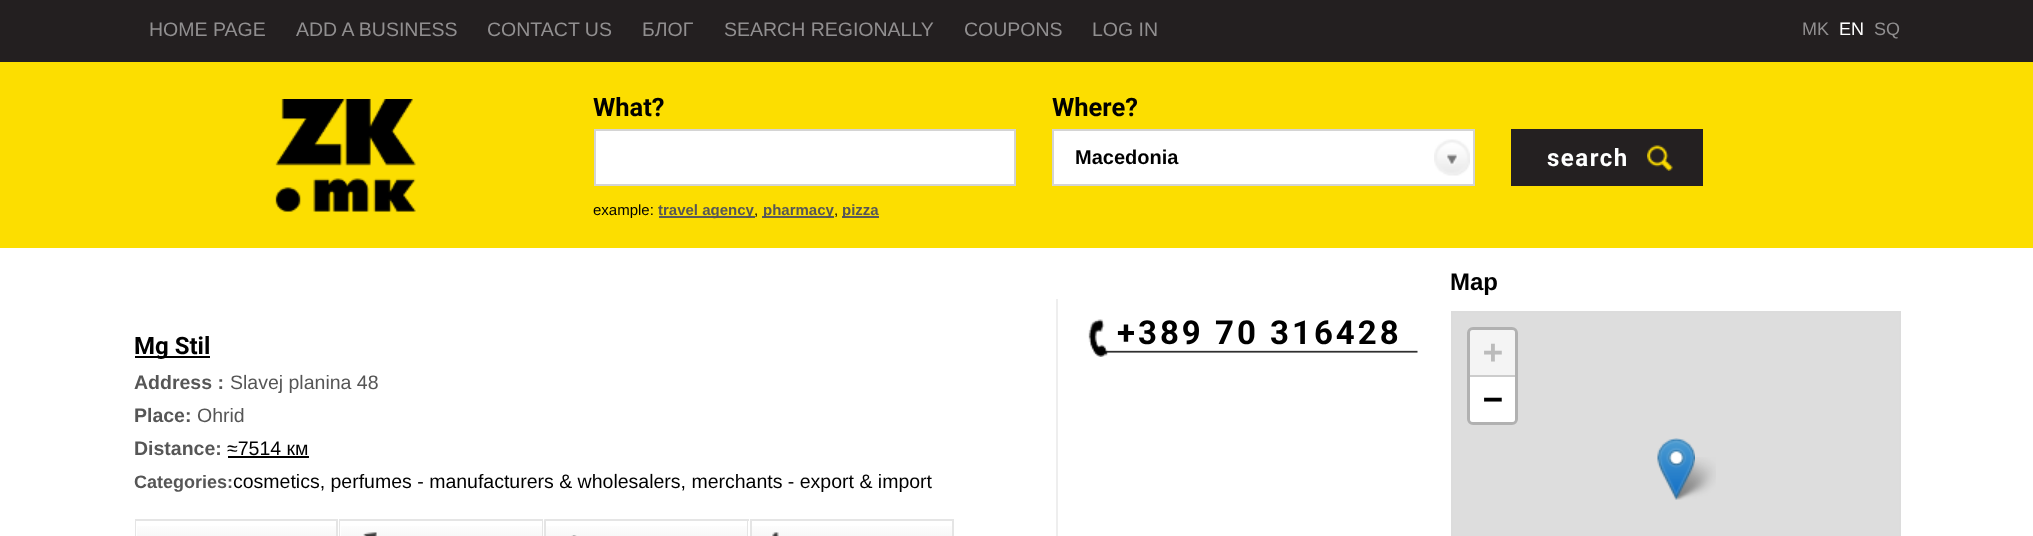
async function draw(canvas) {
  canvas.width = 2033;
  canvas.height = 536;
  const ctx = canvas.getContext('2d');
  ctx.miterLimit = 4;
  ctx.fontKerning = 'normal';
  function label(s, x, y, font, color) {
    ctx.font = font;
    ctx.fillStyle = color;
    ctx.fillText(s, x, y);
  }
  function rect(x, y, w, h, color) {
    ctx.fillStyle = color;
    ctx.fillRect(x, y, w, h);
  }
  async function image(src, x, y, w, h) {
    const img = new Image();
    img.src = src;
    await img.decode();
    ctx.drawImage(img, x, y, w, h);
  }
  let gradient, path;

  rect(0, 0, 2033, 536, '#fff');
  rect(0, 0, 2033, 62, '#231f20');
  label('HOME PAGE', 149, 36, '19.5px Liberation Sans', '#918f90');
  label('ADD A BUSINESS', 296, 36, '19.5px Liberation Sans', '#918f90');
  label('CONTACT US', 487, 36, '19.5px Liberation Sans', '#918f90');
  label('БЛОГ', 642, 36, '19.5px Liberation Sans', '#918f90');
  label('SEARCH REGIONALLY', 724, 36, '19.5px Liberation Sans', '#918f90');
  label('COUPONS', 964, 36, '19.5px Liberation Sans', '#918f90');
  label('LOG IN', 1092, 36, '19.5px Liberation Sans', '#918f90');
  label('MK', 1802, 35, '18px Liberation Sans', '#918f90');
  label('EN', 1839, 35, '18px Liberation Sans', '#fff');
  label('SQ', 1874, 35, '18px Liberation Sans', '#918f90');
  rect(0, 62, 2033, 186, '#fcde00');
  await image('assets/img1.png', 275, 99, 141, 113);
  label('What?', 593, 116, 'bold 25.5px Roboto', '#000');
  ctx.fillStyle = '#fff';
  ctx.beginPath();
  ctx.rect(595, 130, 420, 55);
  ctx.fill();
  ctx.strokeStyle = '#d4d4d4';
  ctx.lineWidth = 2;
  ctx.stroke();
  label('example:', 593, 215, '15px Liberation Sans', '#000');
  rect(659, 216, 96, 2, '#5a5a5a');
  label('travel agency', 658, 215, 'bold 15px Liberation Sans', '#565656');
  label(',', 754, 215, '15px Liberation Sans', '#000');
  rect(762, 216, 72, 2, '#5a5a5a');
  label('pharmacy', 763, 215, 'bold 15px Liberation Sans', '#565656');
  label(',', 834, 215, '15px Liberation Sans', '#000');
  rect(842, 216, 37, 2, '#5a5a5a');
  label('pizza', 842, 215, 'bold 15px Liberation Sans', '#565656');
  label('Where?', 1052, 116, 'bold 25.5px Roboto', '#000');
  rect(1054, 131, 419, 53, '#fff');
  await image('assets/img2.png', 1434, 139, 36, 37);
  ctx.strokeRect(1053, 130, 421, 55);
  label('Macedonia', 1075, 164, 'bold 20px Liberation Sans', '#000');
  rect(1511, 129, 192, 57, '#242021');
  await image('assets/img3.png', 1647, 145, 26, 26);
  ctx.letterSpacing = '1.5px';
  label('search', 1547, 166, 'bold 24px Roboto', '#fff');
  await image('assets/img4.png', 1088, 319, 330, 38);
  ctx.letterSpacing = '3px';
  label('+389 70 316428', 1117, 344, 'bold 33px Roboto', '#000');
  rect(1056, 299, 2, 237, '#eee');
  rect(135, 356, 75, 2, '#000');
  ctx.letterSpacing = '0px';
  label('Mg Stil', 134, 354, 'bold 24px Roboto', '#000');
  label('Address :', 134, 389, 'bold 19.5px Liberation Sans', '#565656');
  label('Slavej planina 48', 230, 389, '19.5px Liberation Sans', '#565656');
  label('Place:', 134, 422, 'bold 19.5px Liberation Sans', '#565656');
  label('Ohrid', 197, 422, '19.5px Liberation Sans', '#565656');
  label('Distance:', 134, 455, 'bold 19.5px Liberation Sans', '#565656');
  label('≈7514 км', 227, 455, '19.5px Liberation Sans', '#000');
  rect(228, 456, 81, 2, '#000');
  label('Categories:', 134, 488, 'bold 18px Liberation Sans', '#565656');
  label('cosmetics, perfumes - manufacturers & wholesalers, merchants - export & import', 233, 488, '19.5px Liberation Sans', '#000');
  gradient = ctx.createLinearGradient(236, 521, 236, 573);
  gradient.addColorStop(0, '#fff');
  gradient.addColorStop(1, '#e5e5e5');
  ctx.fillStyle = gradient;
  ctx.fillRect(137, 526, 199, 10);
  rect(135, 519, 203, 2, '#e5e5e5');
  path = new Path2D('M338 519V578L336 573V520Z');
  ctx.fill(path);
  path = new Path2D('M135 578V519L136 520V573Z');
  ctx.fill(path);
  gradient = ctx.createLinearGradient(441, 521, 441, 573);
  gradient.addColorStop(0, '#fff');
  gradient.addColorStop(1, '#e5e5e5');
  ctx.fillStyle = gradient;
  ctx.fillRect(341, 526, 201, 10);
  rect(339, 519, 204, 2, '#e5e5e5');
  path = new Path2D('M543 519V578L542 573V520Z');
  ctx.fill(path);
  path = new Path2D('M339 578V519L340 520V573Z');
  ctx.fill(path);
  await image('assets/img5.png', 363, 532, 14, 4);
  gradient = ctx.createLinearGradient(647, 521, 647, 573);
  gradient.addColorStop(0, '#fff');
  gradient.addColorStop(1, '#e5e5e5');
  ctx.fillStyle = gradient;
  ctx.fillRect(546, 526, 201, 10);
  rect(545, 519, 204, 2, '#e5e5e5');
  path = new Path2D('M748 519V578L747 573V520Z');
  ctx.fill(path);
  path = new Path2D('M544 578V519L546 520V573Z');
  ctx.fill(path);
  await image('assets/img6.png', 571, 535, 6, 1);
  gradient = ctx.createLinearGradient(852, 521, 852, 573);
  gradient.addColorStop(0, '#fff');
  gradient.addColorStop(1, '#e5e5e5');
  ctx.fillStyle = gradient;
  ctx.fillRect(752, 526, 200, 10);
  rect(750, 519, 204, 2, '#e5e5e5');
  path = new Path2D('M954 519V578L952 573V520Z');
  ctx.fill(path);
  path = new Path2D('M750 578V519L752 520V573Z');
  ctx.fill(path);
  await image('assets/img7.png', 772, 532, 7, 4);
  label('Map', 1450, 290, 'bold 24px Liberation Sans', '#000');
  ctx.strokeStyle = '#dcdcdc';
  ctx.strokeRect(1452, 312, 448, 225);
  rect(1453, 313, 446, 223, '#ddd');
  ctx.beginPath();
  ctx.roundRect(1468.5, 328.5, 48, 95, 4.5);
  ctx.strokeStyle = '#b1b1b1';
  ctx.lineWidth = 3;
  ctx.stroke();
  ctx.fillStyle = '#f4f4f4';
  ctx.beginPath();
  ctx.roundRect(1470, 330, 45, 47, [3, 3, 0, 0]);
  ctx.fill();
  rect(1470, 375, 45, 2, '#ccc');
  label('+', 1483, 363, 'bold 33px DejaVu Sans Mono', '#bbb');
  ctx.fillStyle = '#fff';
  ctx.beginPath();
  ctx.roundRect(1470, 377, 45, 45, [0, 0, 3, 3]);
  ctx.fill();
  label('−', 1483, 410, 'bold 33px DejaVu Sans Mono', '#000');
  await image('assets/img9.png', 1671, 457, 45, 43);
  await image('assets/img8.png', 1657, 438, 38, 62);
}

draw(document.querySelector('canvas'));
